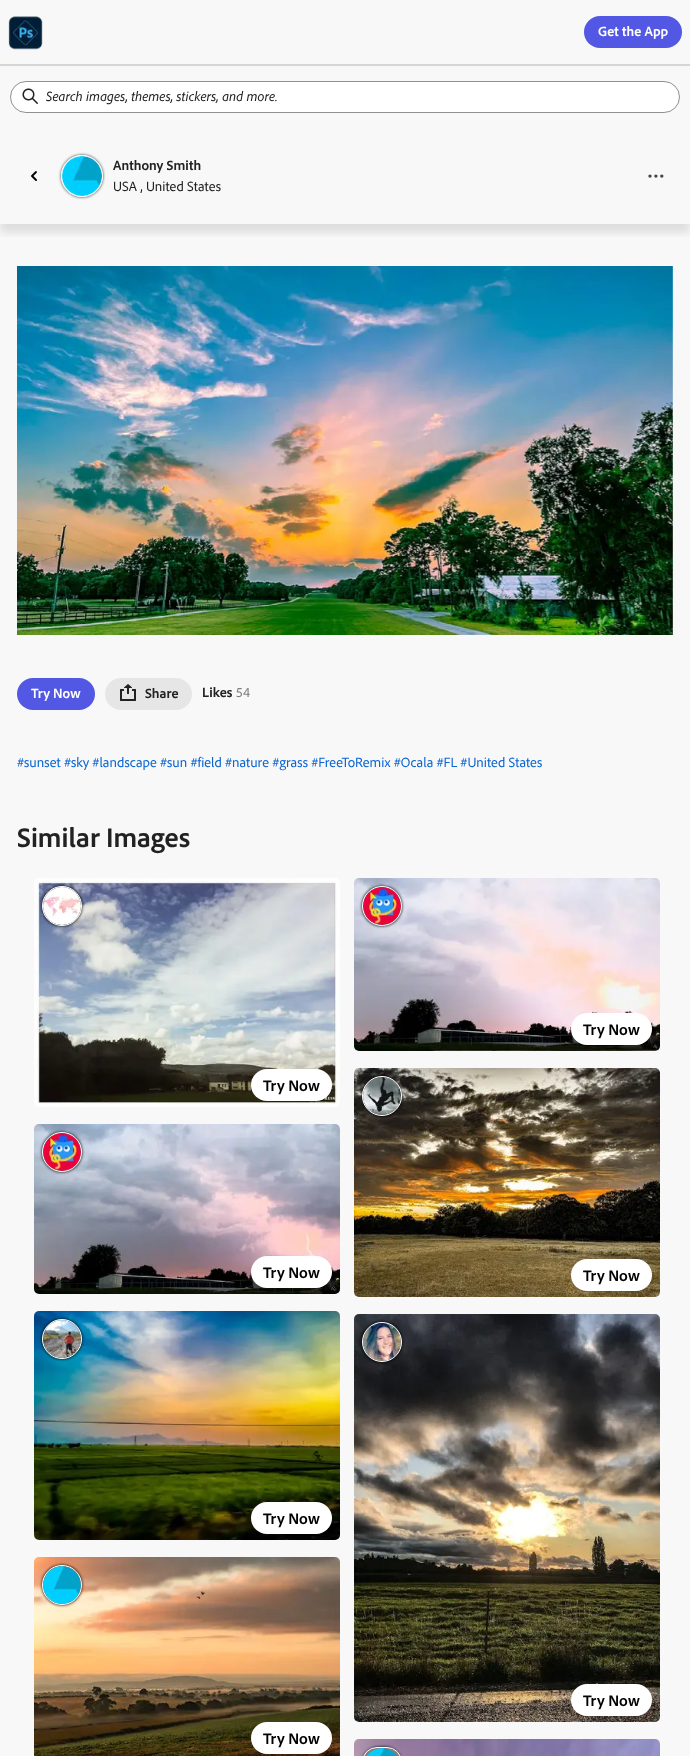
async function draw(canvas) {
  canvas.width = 690;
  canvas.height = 1756;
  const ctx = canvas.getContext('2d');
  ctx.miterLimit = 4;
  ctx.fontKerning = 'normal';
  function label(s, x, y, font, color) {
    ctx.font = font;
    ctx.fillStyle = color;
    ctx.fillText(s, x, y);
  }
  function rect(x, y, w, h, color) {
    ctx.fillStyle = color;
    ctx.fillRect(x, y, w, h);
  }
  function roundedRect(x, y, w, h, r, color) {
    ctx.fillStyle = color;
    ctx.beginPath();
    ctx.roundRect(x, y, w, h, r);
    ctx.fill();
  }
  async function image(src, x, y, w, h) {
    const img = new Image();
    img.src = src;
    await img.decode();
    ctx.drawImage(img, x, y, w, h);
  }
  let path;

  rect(0, 0, 690, 1756, '#f8f8f8');
  rect(0, 64, 690, 2, '#d5d5d5');
  await image('assets/img1.png', 8, 16, 35, 34);
  roundedRect(584, 16, 98, 32, 16, '#5258e4');
  label('Get the App', 598, 36, 'bold 14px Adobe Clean', '#fff');
  ctx.beginPath();
  ctx.roundRect(10.5, 81.5, 669, 31, 15.5);
  ctx.fill();
  ctx.strokeStyle = '#909090';
  ctx.stroke();
  await image('assets/img2.png', 22, 88, 16, 16);
  label('Search images, themes, stickers, and more.', 46, 101, 'italic 14px Adobe Clean', '#222');
  ctx.save();
  ctx.beginPath();
  ctx.rect(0, 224, 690, 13);
  ctx.clip();
  ctx.fillStyle = '#0000001a';
  ctx.filter = 'blur(4.5px)';
  ctx.beginPath();
  ctx.rect(0, 137, 690, 96);
  ctx.fill();
  ctx.filter = 'none';
  ctx.restore();
  await image('assets/img3.png', 31, 171, 6, 10);
  ctx.save();
  path = new Path2D('M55 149H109V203H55ZM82 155C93.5 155 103 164.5 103 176C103 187.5 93.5 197 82 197C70.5 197 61 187.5 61 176C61 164.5 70.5 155 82 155Z');
  ctx.clip(path, 'evenodd');
  ctx.fillStyle = '#323232';
  ctx.filter = 'blur(1.5px)';
  ctx.beginPath();
  ctx.roundRect(61, 155, 42, 42, 21);
  ctx.fill();
  ctx.filter = 'none';
  ctx.restore();
  ctx.beginPath();
  ctx.arc(82, 176, 20.5, 0, 2 * Math.PI);
  ctx.strokeStyle = '#fafafa';
  ctx.stroke();
  await image('assets/img4.png', 62, 156, 40, 40);
  label('Anthony Smith', 113, 170, 'bold 14px Adobe Clean', '#222');
  label('USA , United States', 113, 191, '14px Adobe Clean', '#222');
  ctx.fillStyle = '#464646';
  ctx.beginPath();
  ctx.arc(655.9, 176.1, 1.7, 0, 2 * Math.PI);
  ctx.fill();
  ctx.beginPath();
  ctx.arc(661.8, 176.1, 1.7, 0, 2 * Math.PI);
  ctx.fill();
  ctx.beginPath();
  ctx.arc(650, 176.1, 1.7, 0, 2 * Math.PI);
  ctx.fill();
  await image('assets/img5.png', 17, 266, 656, 369);
  roundedRect(17, 678, 78, 32, 16, '#5258e4');
  label('Try Now', 31, 698, 'bold 14px Adobe Clean', '#fff');
  roundedRect(105, 678, 87, 32, 16, '#e6e6e6');
  await image('assets/img6.png', 120, 684, 16, 17);
  label('Share', 145, 698, 'bold 14px Adobe Clean', '#222');
  label('Likes', 202, 697, 'bold 14px Adobe Clean', '#222');
  label('54', 236, 697, '14px Adobe Clean', '#808080');
  label('#sunset #sky #landscape #sun #field #nature #grass #FreeToRemix #Ocala #FL #United States', 17, 767, '14px Adobe Clean', '#0d66d0');
  label('Similar Images', 17, 847, 'bold 28px Adobe Clean', '#222');
  await image('assets/img7.png', 354, 878, 306, 173);
  ctx.fillStyle = '#000';
  ctx.filter = 'blur(1.5px)';
  ctx.beginPath();
  ctx.roundRect(362, 886, 40, 40, 20);
  ctx.fill();
  ctx.filter = 'none';
  ctx.fillStyle = '#808080';
  ctx.beginPath();
  ctx.arc(382, 906, 19.5, 0, 2 * Math.PI);
  ctx.fill();
  ctx.strokeStyle = '#fff';
  ctx.stroke();
  await image('assets/img8.png', 363, 887, 38, 38);
  roundedRect(571, 1013, 81, 32, 16, '#fff');
  label('Try Now', 583, 1035, 'bold 16px Adobe Clean', '#000');
  await image('assets/img9.png', 34, 878, 306, 229);
  ctx.filter = 'blur(1.5px)';
  ctx.beginPath();
  ctx.roundRect(42, 886, 40, 40, 20);
  ctx.fill();
  ctx.filter = 'none';
  ctx.fillStyle = '#808080';
  ctx.beginPath();
  ctx.arc(62, 906, 19.5, 0, 2 * Math.PI);
  ctx.fill();
  ctx.stroke();
  await image('assets/img10.png', 43, 887, 38, 38);
  roundedRect(251, 1069, 81, 32, 16, '#fff');
  label('Try Now', 263, 1091, 'bold 16px Adobe Clean', '#000');
  await image('assets/img11.png', 34, 1124, 306, 170);
  ctx.filter = 'blur(1.5px)';
  ctx.beginPath();
  ctx.roundRect(42, 1132, 40, 40, 20);
  ctx.fill();
  ctx.filter = 'none';
  ctx.fillStyle = '#808080';
  ctx.beginPath();
  ctx.arc(62, 1152, 19.5, 0, 2 * Math.PI);
  ctx.fill();
  ctx.stroke();
  await image('assets/img12.png', 43, 1133, 38, 38);
  roundedRect(251, 1256, 81, 32, 16, '#fff');
  label('Try Now', 263, 1278, 'bold 16px Adobe Clean', '#000');
  await image('assets/img13.png', 354, 1068, 306, 229);
  ctx.filter = 'blur(1.5px)';
  ctx.beginPath();
  ctx.roundRect(362, 1076, 40, 40, 20);
  ctx.fill();
  ctx.filter = 'none';
  ctx.fillStyle = '#808080';
  ctx.beginPath();
  ctx.arc(382, 1096, 19.5, 0, 2 * Math.PI);
  ctx.fill();
  ctx.stroke();
  await image('assets/img14.png', 363, 1077, 38, 38);
  roundedRect(571, 1259, 81, 32, 16, '#fff');
  label('Try Now', 583, 1281, 'bold 16px Adobe Clean', '#000');
  await image('assets/img15.png', 34, 1311, 306, 229);
  ctx.filter = 'blur(1.5px)';
  ctx.beginPath();
  ctx.roundRect(42, 1319, 40, 40, 20);
  ctx.fill();
  ctx.filter = 'none';
  ctx.fillStyle = '#808080';
  ctx.beginPath();
  ctx.arc(62, 1339, 19.5, 0, 2 * Math.PI);
  ctx.fill();
  ctx.stroke();
  await image('assets/img16.png', 43, 1320, 38, 38);
  roundedRect(251, 1502, 81, 32, 16, '#fff');
  label('Try Now', 263, 1524, 'bold 16px Adobe Clean', '#000');
  await image('assets/img17.png', 354, 1314, 306, 408);
  ctx.filter = 'blur(1.5px)';
  ctx.beginPath();
  ctx.roundRect(362, 1322, 40, 40, 20);
  ctx.fill();
  ctx.filter = 'none';
  ctx.fillStyle = '#808080';
  ctx.beginPath();
  ctx.arc(382, 1342, 19.5, 0, 2 * Math.PI);
  ctx.fill();
  ctx.stroke();
  await image('assets/img18.png', 363, 1323, 38, 38);
  roundedRect(571, 1684, 81, 32, 16, '#fff');
  label('Try Now', 583, 1706, 'bold 16px Adobe Clean', '#000');
  await image('assets/img19.png', 34, 1557, 306, 199);
  ctx.filter = 'blur(1.5px)';
  ctx.beginPath();
  ctx.roundRect(42, 1565, 40, 40, 20);
  ctx.fill();
  ctx.filter = 'none';
  ctx.fillStyle = '#808080';
  ctx.beginPath();
  ctx.arc(62, 1585, 19.5, 0, 2 * Math.PI);
  ctx.fill();
  ctx.stroke();
  await image('assets/img20.png', 43, 1566, 38, 38);
  roundedRect(251, 1722, 81, 32, 16, '#fff');
  label('Try Now', 263, 1744, 'bold 16px Adobe Clean', '#000');
  await image('assets/img21.png', 354, 1739, 306, 17);
  ctx.filter = 'blur(1.5px)';
  ctx.beginPath();
  ctx.roundRect(362, 1747, 40, 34, 20);
  ctx.fill();
  ctx.filter = 'none';
  ctx.fillStyle = '#808080';
  ctx.beginPath();
  ctx.roundRect(362.5, 1747.5, 39, 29, 19.5);
  ctx.fill();
  ctx.stroke();
  await image('assets/img22.png', 367, 1748, 30, 8);
}

draw(document.querySelector('canvas'));
